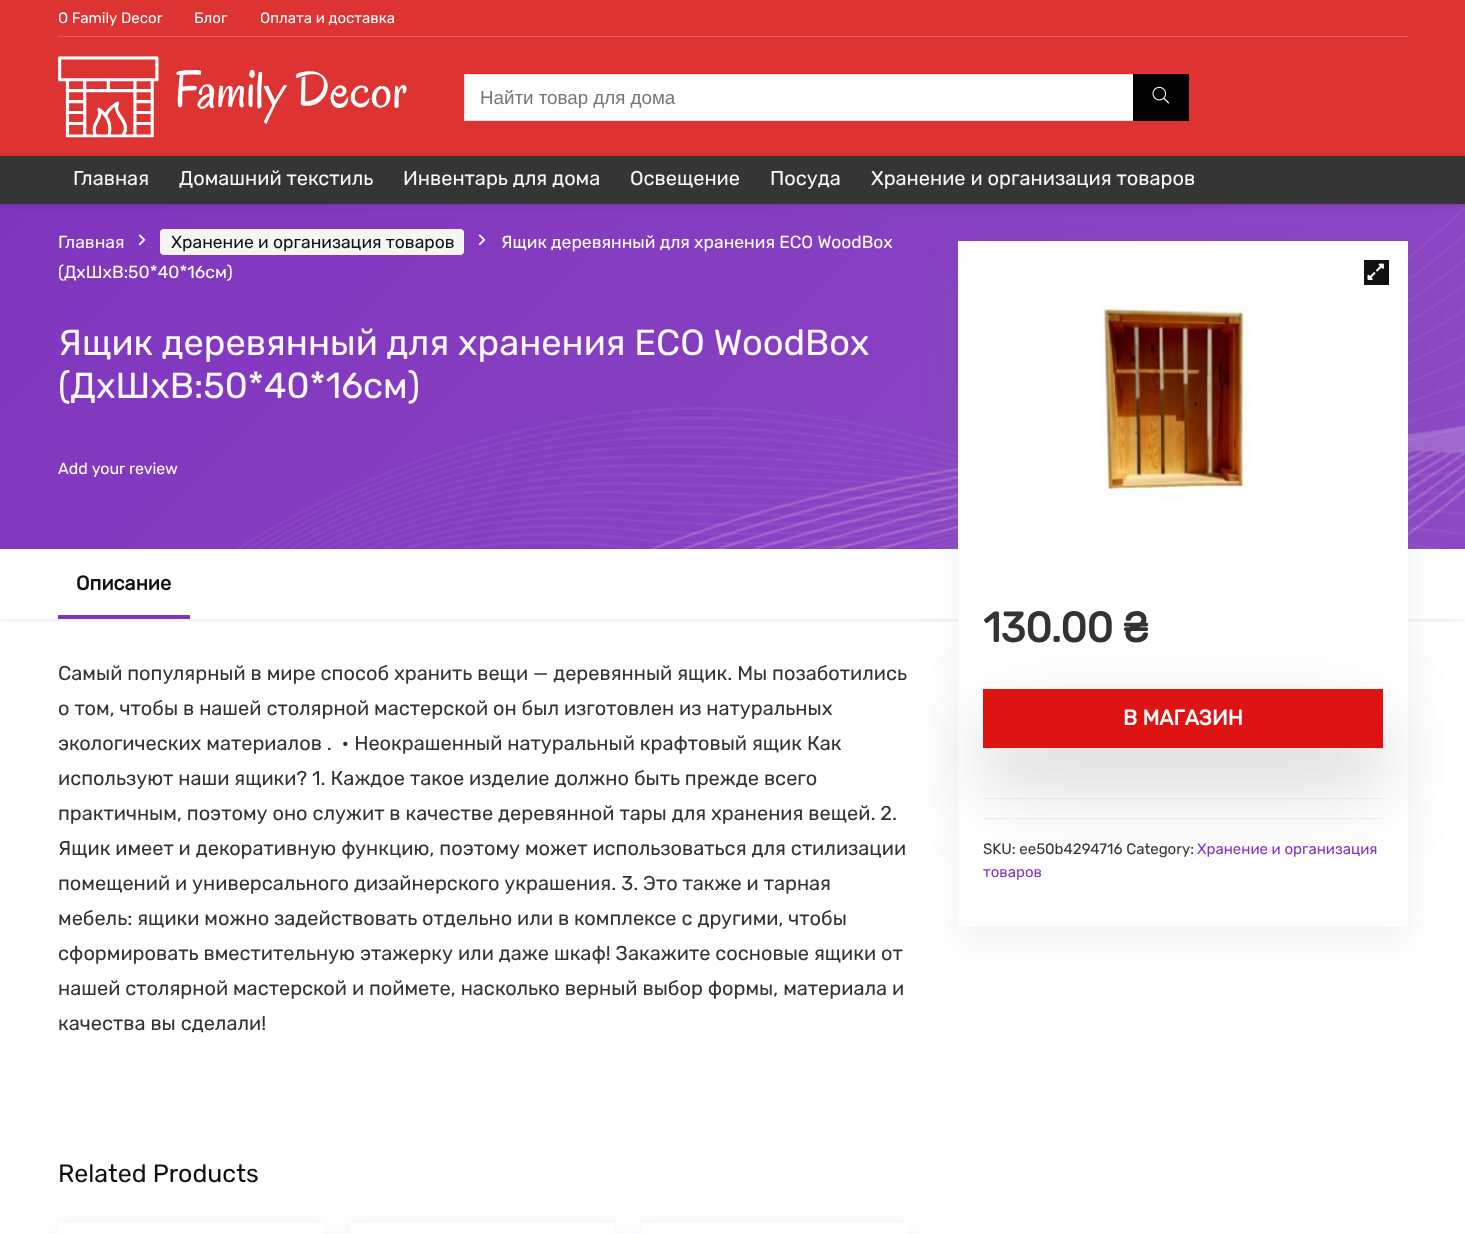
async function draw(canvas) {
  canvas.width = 1465;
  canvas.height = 1234;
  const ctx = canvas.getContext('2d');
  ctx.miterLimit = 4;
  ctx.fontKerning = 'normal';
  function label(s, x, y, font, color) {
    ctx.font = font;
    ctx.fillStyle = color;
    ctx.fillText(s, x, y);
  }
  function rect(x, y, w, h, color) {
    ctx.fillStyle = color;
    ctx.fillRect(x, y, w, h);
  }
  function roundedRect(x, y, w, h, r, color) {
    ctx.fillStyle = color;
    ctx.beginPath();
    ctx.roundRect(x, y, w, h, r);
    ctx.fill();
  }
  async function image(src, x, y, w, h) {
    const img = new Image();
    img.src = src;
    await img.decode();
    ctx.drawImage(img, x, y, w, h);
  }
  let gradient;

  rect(0, 0, 1465, 1234, '#fff');
  rect(0, 0, 1465, 156, '#d33');
  rect(58, 36, 1350, 1, '#e15c5c');
  label('О Family Decor', 58, 23, '300 15px Rubik', '#fff');
  label('Блог', 194, 23, '300 15px Rubik', '#fff');
  label('Оплата и доставка', 260, 23, '300 15px Rubik', '#fff');
  await image('assets/img1.png', 58, 56, 349, 82);
  rect(465, 75, 668, 45, '#fff');
  ctx.strokeStyle = '#e1e1e1';
  ctx.strokeRect(464.5, 74.5, 724, 46);
  label('Найти товар для дома', 480, 104, '18.75px Liberation Sans', '#757575');
  rect(1133, 74, 56, 47, '#000');
  await image('assets/img2.png', 1152, 86, 18, 18);
  ctx.save();
  ctx.beginPath();
  ctx.rect(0, 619, 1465, 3);
  ctx.clip();
  ctx.fillStyle = '#00000012';
  ctx.filter = 'blur(2.5px)';
  ctx.beginPath();
  ctx.rect(0, 551, 1465, 70);
  ctx.fill();
  ctx.filter = 'none';
  ctx.restore();
  gradient = ctx.createLinearGradient(280, -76, 1185, 829);
  gradient.addColorStop(0, '#8035be');
  gradient.addColorStop(1, '#8d49c5');
  ctx.fillStyle = gradient;
  ctx.fillRect(0, 204, 1465, 345);
  roundedRect(160, 229, 304, 26, 4, '#f5f5f5');
  label('Хранение и организация товаров', 171, 248, '300 17.5px Rubik', '#111');
  await image('assets/img5.png', 478, 234, 8, 12);
  label('Ящик деревянный для хранения ECO WoodBox', 501, 248, '300 17.5px Rubik', '#fff');
  label('Ящик деревянный для хранения ECO WoodBox', 58, 355, '300 36.25px Rubik', '#f8f8f8');
  label('(ДхШхВ:50*40*16см)', 58, 398, '300 36.25px Rubik', '#f8f8f8');
  await image('assets/img3.png', 237, 207, 1228, 342);
  ctx.fillStyle = '#777b921a';
  ctx.filter = 'blur(19px)';
  ctx.beginPath();
  ctx.rect(958, 260, 450, 685);
  ctx.fill();
  ctx.filter = 'none';
  ctx.strokeStyle = '#00000008';
  ctx.strokeRect(-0.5, 155.5, 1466, 49);
  ctx.fillStyle = '#0000001a';
  ctx.filter = 'blur(5px)';
  ctx.beginPath();
  ctx.rect(0, 158, 1465, 47);
  ctx.fill();
  ctx.filter = 'none';
  rect(0, 156, 1465, 48, '#353535');
  label('Главная', 73, 185, '300 20px Rubik', '#f8f8f8');
  label('Домашний текстиль', 179, 185, '300 20px Rubik', '#f8f8f8');
  label('Инвентарь для дома', 403, 185, '300 20px Rubik', '#f8f8f8');
  label('Освещение', 630, 185, '300 20px Rubik', '#f8f8f8');
  label('Посуда', 770, 185, '300 20px Rubik', '#f8f8f8');
  label('Хранение и организация товаров', 871, 185, '300 20px Rubik', '#f8f8f8');
  label('Главная', 58, 248, '300 17.5px Rubik', '#f8f8f8');
  await image('assets/img4.png', 138, 234, 8, 12);
  label('(ДхШхВ:50*40*16см)', 58, 278, '300 17.5px Rubik', '#fff');
  label('Add your review', 58, 474, '300 16px Rubik', '#fff');
  rect(958, 241, 450, 685, '#fff');
  rect(1364, 260, 25, 25, '#111');
  await image('assets/img6.png', 1367, 263, 17, 17);
  await image('assets/img7.png', 1100, 305, 150, 196);
  ctx.letterSpacing = '-0.5px';
  label('130.00 ₴', 983, 642, 'bold 42px Rubik', '#333');
  rect(983, 798, 400, 1, '#f0f0f0');
  rect(983, 818, 400, 1, '#f0f0f0');
  ctx.fillStyle = '#0000001f';
  ctx.filter = 'blur(50px)';
  ctx.beginPath();
  ctx.rect(983, 726, 400, 59);
  ctx.fill();
  ctx.filter = 'none';
  ctx.fillStyle = '#0000000f';
  ctx.filter = 'blur(24px)';
  ctx.beginPath();
  ctx.rect(983, 724, 400, 59);
  ctx.fill();
  ctx.filter = 'none';
  rect(983, 689, 400, 59, '#de1414');
  ctx.letterSpacing = '0px';
  label('В МАГАЗИН', 1123, 725, 'bold 21.25px Rubik', '#fff');
  label('SKU: ee50b4294716 Category:', 983, 854, '300 15px Rubik', '#333');
  label('Хранение и организация', 1197, 854, '300 15px Rubik', '#8035be');
  label('товаров', 983, 877, '300 15px Rubik', '#8035be');
  label('Описание', 76, 590, 'bold 20px Rubik', '#111');
  rect(58, 615, 132, 4, '#8035be');
  label('Самый популярный в мире способ хранить вещи — деревянный ящик. Мы позаботились', 58, 680, '300 20px Rubik', '#333');
  label('о том, чтобы в нашей столярной мастерской он был изготовлен из натуральных', 58, 715, '300 20px Rubik', '#333');
  label('экологических материалов .  • Неокрашенный натуральный крафтовый ящик Как', 58, 750, '300 20px Rubik', '#333');
  label('используют наши ящики? 1. Каждое такое изделие должно быть прежде всего', 58, 785, '300 20px Rubik', '#333');
  label('практичным, поэтому оно служит в качестве деревянной тары для хранения вещей. 2.', 58, 820, '300 20px Rubik', '#333');
  label('Ящик имеет и декоративную функцию, поэтому может использоваться для стилизации', 58, 855, '300 20px Rubik', '#333');
  label('помещений и универсального дизайнерского украшения. 3. Это также и тарная', 58, 890, '300 20px Rubik', '#333');
  label('мебель: ящики можно задействовать отдельно или в комплексе с другими, чтобы', 58, 925, '300 20px Rubik', '#333');
  label('сформировать вместительную этажерку или даже шкаф! Закажите сосновые ящики от', 58, 960, '300 20px Rubik', '#333');
  label('нашей столярной мастерской и поймете, насколько верный выбор формы, материала и', 58, 995, '300 20px Rubik', '#333');
  label('качества вы сделали!', 58, 1030, '300 20px Rubik', '#333');
  label('Related Products', 58, 1182, '300 25px Rubik', '#111');
  ctx.fillStyle = '#bccfdb59';
  ctx.filter = 'blur(14.5px)';
  ctx.beginPath();
  ctx.rect(58, 1228, 266, 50);
  ctx.fill();
  ctx.filter = 'none';
  rect(58, 1222, 266, 12, '#fff');
  rect(58, 1221, 266, 1, '#f8f8f8');
  ctx.fillStyle = '#bccfdb59';
  ctx.filter = 'blur(14.5px)';
  ctx.beginPath();
  ctx.rect(350, 1228, 265, 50);
  ctx.fill();
  ctx.filter = 'none';
  rect(350, 1222, 265, 12, '#fff');
  rect(350, 1221, 265, 1, '#f8f8f8');
  ctx.fillStyle = '#bccfdb59';
  ctx.filter = 'blur(14.5px)';
  ctx.beginPath();
  ctx.rect(641, 1228, 267, 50);
  ctx.fill();
  ctx.filter = 'none';
  rect(641, 1222, 267, 12, '#fff');
  rect(641, 1221, 267, 1, '#f8f8f8');
}

draw(document.querySelector('canvas'));
